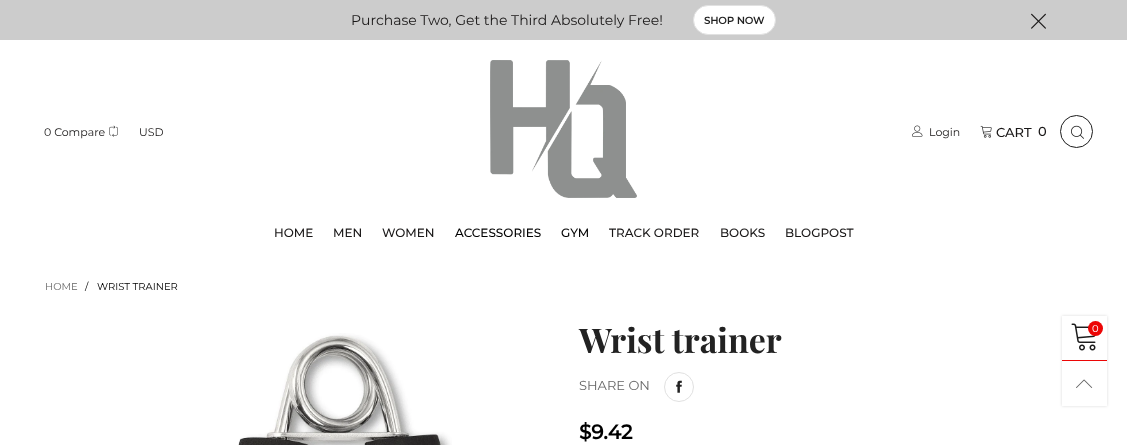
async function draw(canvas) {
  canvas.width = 1127;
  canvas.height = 445;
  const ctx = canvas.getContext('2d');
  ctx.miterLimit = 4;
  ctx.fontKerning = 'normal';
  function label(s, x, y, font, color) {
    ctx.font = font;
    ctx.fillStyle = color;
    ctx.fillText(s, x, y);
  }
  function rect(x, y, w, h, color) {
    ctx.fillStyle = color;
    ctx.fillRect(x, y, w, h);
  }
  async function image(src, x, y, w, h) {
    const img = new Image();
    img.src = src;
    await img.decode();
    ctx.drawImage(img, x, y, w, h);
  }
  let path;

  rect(0, 0, 1127, 445, '#fff');
  rect(0, 0, 1127, 40, '#ccc');
  label('Purchase Two, Get the Third Absolutely Free!', 351, 25, '14px Montserrat', '#191717');
  ctx.fillStyle = '#fff';
  ctx.beginPath();
  ctx.roundRect(693.5, 5.5, 82, 29, 14.5);
  ctx.fill();
  ctx.strokeStyle = '#e1e1e1';
  ctx.stroke();
  label('SHOP NOW', 704, 24, 'bold 10px Montserrat', '#222');
  await image('assets/img1.png', 1031, 13, 15, 16);
  label('0 Compare', 44, 136, '11px Montserrat', '#191717');
  await image('assets/img2.png', 109, 125, 9, 12);
  label('USD', 139, 136, '11px Montserrat', '#191717');
  await image('assets/img3.png', 490, 60, 147, 138);
  await image('assets/img4.png', 912, 125, 11, 12);
  label('Login', 929, 136, '11px Montserrat', '#191717');
  await image('assets/img5.png', 980, 125, 12, 13);
  label('CART', 996, 137, '500 13px Montserrat', '#191717');
  label('0', 1038, 136, '500 13px Montserrat', '#191717');
  ctx.beginPath();
  ctx.arc(1076.5, 131.5, 16, 0, 2 * Math.PI);
  ctx.strokeStyle = '#1c1c1c';
  ctx.stroke();
  await image('assets/img6.png', 1071, 125, 13, 14);
  label('HOME', 274, 237, '500 12px Montserrat', '#191717');
  label('MEN', 333, 237, '500 12px Montserrat', '#191717');
  label('WOMEN', 382, 237, '500 12px Montserrat', '#191717');
  label('ACCESSORIES', 455, 237, '500 12px Montserrat', '#000');
  label('GYM', 561, 237, '500 12px Montserrat', '#000');
  label('TRACK ORDER', 609, 237, '500 12px Montserrat', '#191717');
  label('BOOKS', 720, 237, '500 12px Montserrat', '#191717');
  label('BLOGPOST', 785, 237, '500 12px Montserrat', '#191717');
  label('HOME', 45, 290, '10px Montserrat', '#666');
  label('/', 85, 290, '10px Montserrat', '#000');
  label('WRIST TRAINER', 97, 290, '10px Montserrat', '#000');
  await image('assets/img7.png', 238, 333, 214, 112);
  label('Wrist trainer', 579, 353, 'bold 34px Playfair Display', '#222');
  label('SHARE ON', 579, 390, '13px Montserrat', '#666');
  ctx.beginPath();
  ctx.arc(679, 387, 14.5, 0, 2 * Math.PI);
  ctx.strokeStyle = '#e1e1e1';
  ctx.stroke();
  await image('assets/img8.png', 676, 380, 6, 13);
  label('$9.42', 579, 439, 'bold 20px Montserrat', '#000');
  ctx.save();
  path = new Path2D('M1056 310H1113V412H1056ZM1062 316H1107V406H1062Z');
  ctx.clip(path, 'evenodd');
  ctx.fillStyle = '#00000026';
  ctx.filter = 'blur(1.5px)';
  ctx.beginPath();
  ctx.rect(1062, 316, 45, 90);
  ctx.fill();
  ctx.filter = 'none';
  ctx.restore();
  rect(1062, 360, 45, 1, '#ec0606');
  await image('assets/img9.png', 1071, 323, 25, 28);
  ctx.beginPath();
  ctx.arc(1095.5, 328.5, 7.5, 0, 2 * Math.PI);
  ctx.fill();
  label('0', 1092, 332, '10px Montserrat', '#fff');
  await image('assets/img10.png', 1076, 379, 17, 9);
}

draw(document.querySelector('canvas'));
